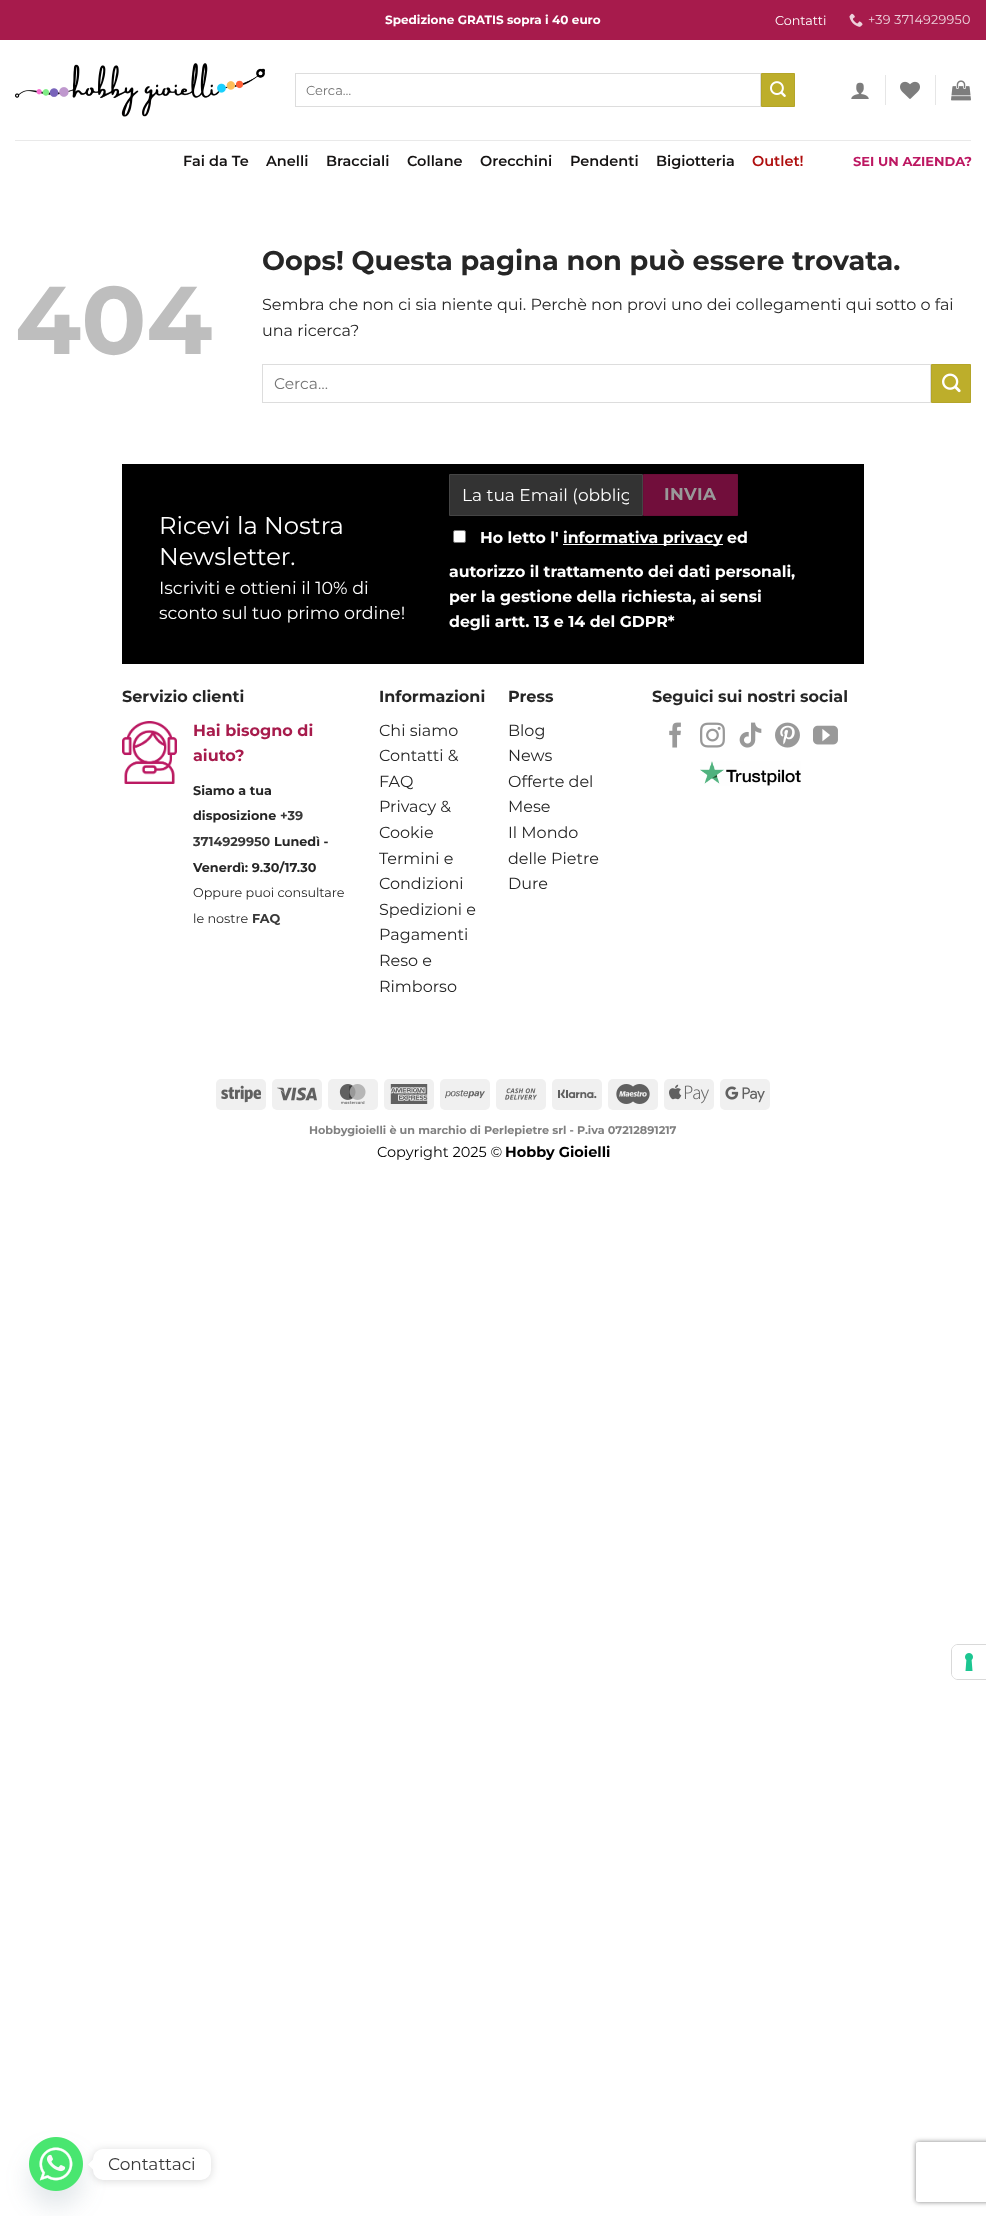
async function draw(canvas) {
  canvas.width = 986;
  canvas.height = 2216;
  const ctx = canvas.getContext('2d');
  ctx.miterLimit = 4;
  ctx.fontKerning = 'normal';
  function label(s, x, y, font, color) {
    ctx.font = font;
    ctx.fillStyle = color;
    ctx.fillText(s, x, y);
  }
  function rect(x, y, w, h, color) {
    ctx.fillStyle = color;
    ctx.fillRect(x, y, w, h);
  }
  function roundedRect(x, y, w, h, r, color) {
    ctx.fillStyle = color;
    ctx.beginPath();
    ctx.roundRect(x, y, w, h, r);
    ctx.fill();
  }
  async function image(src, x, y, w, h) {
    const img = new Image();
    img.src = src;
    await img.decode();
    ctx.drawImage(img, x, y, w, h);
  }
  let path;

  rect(0, 0, 986, 2216, '#fff');
  rect(0, 0, 986, 40, '#a71b4c');
  label('Spedizione GRATIS sopra i 40 euro', 385, 24, 'bold 12px Montserrat', '#fff');
  label('Contatti', 775, 25, '12.75px Montserrat', '#fff');
  await image('assets/img1.png', 849, 13, 14, 14);
  ctx.letterSpacing = '0.25px';
  label('+39 3714929950', 868, 24, '12.75px Montserrat', '#edd1db');
  await image('assets/img2.png', 15, 63, 250, 54);
  ctx.strokeStyle = '#ddd';
  ctx.strokeRect(295.5, 73.5, 465, 33);
  ctx.letterSpacing = '0px';
  label('Cerca…', 306, 95, '13px Montserrat', '#757575');
  ctx.fillStyle = '#bdae2b';
  ctx.beginPath();
  ctx.rect(761.5, 73.5, 33, 33);
  ctx.fill();
  ctx.strokeStyle = '#b4a529';
  ctx.stroke();
  await image('assets/img3.png', 770, 81, 16, 16);
  await image('assets/img4.png', 851, 82, 18, 17);
  rect(885, 75, 1, 30, '#e6e6e6');
  await image('assets/img5.png', 900, 81, 20, 18);
  rect(935, 75, 1, 30, '#e6e6e6');
  await image('assets/img6.png', 951, 80, 20, 21);
  rect(15, 140, 956, 1, '#e9e9e9');
  label('Fai da Te', 183, 166, '600 14.5px Montserrat', '#151313');
  label('Anelli', 266, 166, '600 14.5px Montserrat', '#151313');
  label('Bracciali', 326, 166, '600 14.5px Montserrat', '#151313');
  label('Collane', 407, 166, '600 14.5px Montserrat', '#151313');
  label('Orecchini', 480, 166, '600 14.5px Montserrat', '#151313');
  label('Pendenti', 570, 166, '600 14.5px Montserrat', '#151313');
  label('Bigiotteria', 656, 166, '600 14.5px Montserrat', '#151313');
  label('Outlet!', 752, 166, '600 14.5px Montserrat', '#af0e0e');
  label('SEI UN AZIENDA?', 853, 166, 'bold 13px Montserrat', '#bd1862');
  label('404', 15, 354, 'bold 96px Montserrat', '#bebebe');
  label('Oops! Questa pagina non può essere trovata.', 262, 270, 'bold 27.2px Montserrat', '#262626');
  label('Sembra che non ci sia niente qui. Perchè non provi uno dei collegamenti qui sotto o fai', 262, 310, '16px Montserrat', '#262626');
  label('una ricerca?', 262, 336, '16px Montserrat', '#262626');
  ctx.strokeStyle = '#ddd';
  ctx.strokeRect(262.5, 364.5, 668, 38);
  label('Cerca…', 274, 389, '15.5px Montserrat', '#757575');
  ctx.fillStyle = '#bdae2b';
  ctx.beginPath();
  ctx.rect(931.5, 364.5, 39, 38);
  ctx.fill();
  ctx.strokeStyle = '#b4a529';
  ctx.stroke();
  await image('assets/img7.png', 942, 373, 19, 20);
  rect(122, 464, 742, 200, '#000');
  label('Ricevi la Nostra', 159, 534, '24.25px Montserrat', '#fff');
  label('Newsletter.', 159, 565, '24.25px Montserrat', '#fff');
  label('Iscriviti e ottieni il 10% di', 159, 594, '17.5px Montserrat', '#fff');
  label('sconto sul tuo primo ordine!', 159, 619, '17.5px Montserrat', '#fff');
  ctx.fillStyle = '#333';
  ctx.beginPath();
  ctx.rect(449.5, 474.5, 193, 41);
  ctx.fill();
  ctx.strokeStyle = '#454545';
  ctx.stroke();
  ctx.save();
  ctx.beginPath();
  ctx.rect(462, 485, 167, 20);
  ctx.clip();
  label('La tua Email (obblig', 462, 501, '17px Montserrat', '#fff');
  ctx.restore();
  ctx.fillStyle = '#710e3b';
  ctx.beginPath();
  ctx.rect(643.5, 474.5, 94, 41);
  ctx.fill();
  ctx.strokeStyle = '#6b0d38';
  ctx.stroke();
  ctx.letterSpacing = '0.5px';
  label('INVIA', 664, 500, 'bold 17px Montserrat', '#999');
  ctx.fillStyle = '#fff';
  ctx.beginPath();
  ctx.roundRect(453.5, 530.5, 12, 12, 1.5);
  ctx.fill();
  ctx.strokeStyle = '#767676';
  ctx.stroke();
  ctx.letterSpacing = '0px';
  label('Ho letto l\'', 480, 543, 'bold 15.75px Montserrat', '#fff');
  rect(563, 544, 160, 1, '#fff');
  label('informativa privacy ed', 563, 543, 'bold 15.75px Montserrat', '#fff');
  label('autorizzo il trattamento dei dati personali,', 449, 577, 'bold 15.75px Montserrat', '#fff');
  label('per la gestione della richiesta, ai sensi', 449, 602, 'bold 15.75px Montserrat', '#fff');
  label('degli artt. 13 e 14 del GDPR*', 449, 627, 'bold 15.75px Montserrat', '#fff');
  label('Servizio clienti', 122, 702, 'bold 16px Montserrat', '#262626');
  await image('assets/img8.png', 122, 721, 55, 63);
  label('Hai bisogno di', 193, 736, 'bold 16px Montserrat', '#a71b4c');
  label('aiuto?', 193, 761, 'bold 16px Montserrat', '#a71b4c');
  label('Siamo a tua', 193, 795, 'bold 12.75px Montserrat', '#262626');
  label('disposizione', 193, 820, 'bold 12.75px Montserrat', '#262626');
  label('+39', 280, 820, 'bold 12.75px Montserrat', '#383838');
  label('3714929950', 193, 846, 'bold 12.75px Montserrat', '#383838');
  label('Lunedì -', 274, 846, 'bold 12.75px Montserrat', '#262626');
  label('Venerdì: 9.30/17.30', 193, 872, 'bold 12.75px Montserrat', '#262626');
  label('Oppure puoi consultare', 193, 897, '12.75px Montserrat', '#262626');
  label('le nostre', 193, 923, '12.75px Montserrat', '#262626');
  label('FAQ', 252, 923, 'bold 12.75px Montserrat', '#383838');
  label('Informazioni', 379, 702, 'bold 16px Montserrat', '#262626');
  label('Chi siamo', 379, 736, '16px Montserrat', '#262626');
  label('Contatti &', 379, 761, '16px Montserrat', '#262626');
  label('FAQ', 379, 787, '16px Montserrat', '#262626');
  label('Privacy &', 379, 812, '16px Montserrat', '#262626');
  label('Cookie', 379, 838, '16px Montserrat', '#262626');
  label('Termini e', 379, 864, '16px Montserrat', '#262626');
  label('Condizioni', 379, 889, '16px Montserrat', '#262626');
  label('Spedizioni e', 379, 915, '16px Montserrat', '#262626');
  label('Pagamenti', 379, 940, '16px Montserrat', '#262626');
  label('Reso e', 379, 966, '16px Montserrat', '#262626');
  label('Rimborso', 379, 992, '16px Montserrat', '#262626');
  label('Press', 508, 702, 'bold 16px Montserrat', '#262626');
  label('Blog', 508, 736, '16px Montserrat', '#262626');
  label('News', 508, 761, '16px Montserrat', '#262626');
  label('Offerte del', 508, 787, '16px Montserrat', '#262626');
  label('Mese', 508, 812, '16px Montserrat', '#262626');
  label('Il Mondo', 508, 838, '16px Montserrat', '#262626');
  label('delle Pietre', 508, 864, '16px Montserrat', '#262626');
  label('Dure', 508, 889, '16px Montserrat', '#262626');
  label('Seguici sui nostri social', 652, 702, 'bold 16px Montserrat', '#262626');
  await image('assets/img9.png', 669, 722, 12, 26);
  await image('assets/img10.png', 700, 722, 25, 26);
  await image('assets/img11.png', 739, 722, 23, 26);
  await image('assets/img12.png', 775, 722, 25, 26);
  await image('assets/img13.png', 813, 725, 25, 20);
  await image('assets/img14.png', 700, 761, 101, 25);
  roundedRect(216, 1079, 50, 31, 5, '#f0f0f0');
  await image('assets/img15.png', 221, 1085, 40, 18);
  roundedRect(272, 1079, 50, 31, 5, '#f0f0f0');
  await image('assets/img16.png', 277, 1087, 40, 14);
  roundedRect(328, 1079, 50, 31, 5, '#f0f0f0');
  await image('assets/img17.png', 339, 1084, 27, 20);
  roundedRect(384, 1079, 50, 31, 5, '#f0f0f0');
  await image('assets/img18.png', 390, 1084, 38, 20);
  roundedRect(440, 1079, 50, 31, 5, '#f0f0f0');
  await image('assets/img19.png', 445, 1090, 40, 9);
  roundedRect(496, 1079, 50, 31, 5, '#f0f0f0');
  await image('assets/img20.png', 505, 1088, 32, 12);
  roundedRect(552, 1079, 50, 31, 5, '#f0f0f0');
  await image('assets/img21.png', 558, 1089, 39, 10);
  roundedRect(608, 1079, 50, 31, 5, '#f0f0f0');
  await image('assets/img22.png', 616, 1084, 34, 20);
  roundedRect(664, 1079, 50, 31, 5, '#f0f0f0');
  await image('assets/img23.png', 669, 1084, 40, 20);
  roundedRect(720, 1079, 50, 31, 5, '#f0f0f0');
  await image('assets/img24.png', 725, 1086, 40, 17);
  label('Hobbygioielli è un marchio di Perlepietre srl - P.iva 07212891217', 309, 1134, 'bold 11.2px Montserrat', '#808080');
  label('Copyright 2025 ©', 377, 1157, '14.5px Montserrat', '#000');
  label('Hobby Gioielli', 505, 1157, 'bold 14.5px Montserrat', '#000');
  path = new Path2D('M958 1644.5H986.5V1679.5H958C954.5 1679.5 951.5 1676.5 951.5 1673V1651C951.5 1647.5 954.5 1644.5 958 1644.5Z');
  ctx.strokeStyle = '#d9d9d9';
  ctx.stroke(path);
  ctx.fillStyle = '#fff';
  ctx.beginPath();
  ctx.roundRect(952, 1645, 34, 34, [6, 0, 0, 6]);
  ctx.fill();
  await image('assets/img25.png', 965, 1653, 8, 18);
  ctx.fillStyle = '#49687e29';
  ctx.filter = 'blur(12px)';
  ctx.beginPath();
  ctx.roundRect(29, 2153, 54, 54, 27);
  ctx.fill();
  ctx.filter = 'none';
  await image('assets/img26.png', 29, 2137, 54, 54);
  ctx.fillStyle = '#00000026';
  ctx.filter = 'blur(4px)';
  ctx.beginPath();
  ctx.roundRect(93, 2150, 118, 31, 10);
  ctx.fill();
  ctx.filter = 'none';
  roundedRect(93, 2149, 118, 31, 10, '#fff');
  path = new Path2D('M93 2159.5V2169.5L88 2164.5Z');
  ctx.fill(path);
  label('Contattaci', 108, 2170, '17px Montserrat', '#383838');
  ctx.save();
  path = new Path2D('M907 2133H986V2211H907ZM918 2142H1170C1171 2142 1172 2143 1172 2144V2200C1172 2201 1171 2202 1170 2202H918C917 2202 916 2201 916 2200V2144C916 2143 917 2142 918 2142Z');
  ctx.clip(path, 'evenodd');
  ctx.fillStyle = '#808080';
  ctx.filter = 'blur(2.5px)';
  ctx.beginPath();
  ctx.roundRect(916, 2142, 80, 60, 2);
  ctx.fill();
  ctx.filter = 'none';
  ctx.restore();
}

draw(document.querySelector('canvas'));
